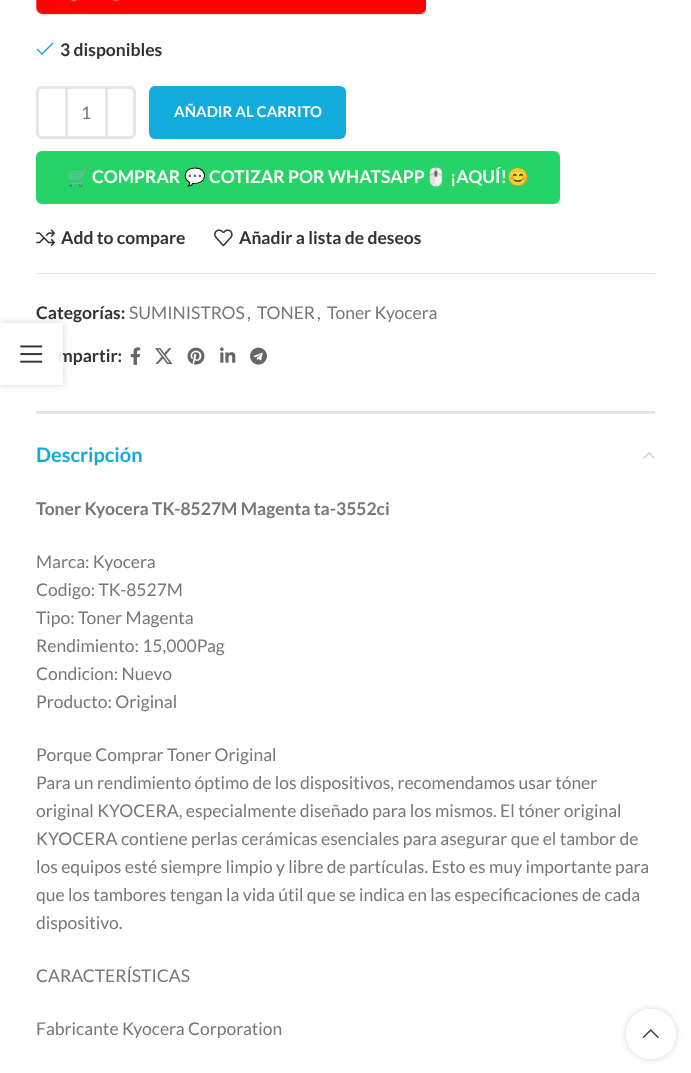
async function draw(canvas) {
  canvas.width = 691;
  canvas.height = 1073;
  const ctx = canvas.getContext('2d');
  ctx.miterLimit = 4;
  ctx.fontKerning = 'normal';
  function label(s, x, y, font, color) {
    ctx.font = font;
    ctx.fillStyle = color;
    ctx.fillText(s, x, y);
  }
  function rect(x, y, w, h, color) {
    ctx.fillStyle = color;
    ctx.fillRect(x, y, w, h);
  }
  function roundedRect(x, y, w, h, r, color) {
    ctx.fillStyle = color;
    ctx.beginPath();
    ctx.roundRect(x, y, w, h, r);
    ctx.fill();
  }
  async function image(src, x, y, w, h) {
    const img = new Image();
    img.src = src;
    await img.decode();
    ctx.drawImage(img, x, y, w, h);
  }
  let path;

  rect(0, 0, 691, 1073, '#fff');
  await image('assets/img1.png', 36, 0, 390, 15);
  ctx.fillStyle = '#13abdc';
  path = new Path2D('M53.5 43.5L52.5 42.5L42 53L37.5 48.5L36.5 49.5L42 55Z');
  ctx.fill(path);
  label('3 disponibles', 60, 56, 'bold 17.5px Lato', '#333');
  ctx.beginPath();
  ctx.roundRect(37.5, 87.5, 29, 50, [4.5, 0, 0, 4.5]);
  ctx.strokeStyle = '#e6e6e6';
  ctx.lineWidth = 3;
  ctx.stroke();
  rect(68, 86, 37, 3, '#e6e6e6');
  rect(68, 136, 37, 3, '#e6e6e6');
  label('1', 81, 119, '17.5px Lato', '#777');
  ctx.beginPath();
  ctx.roundRect(106.5, 87.5, 28, 50, [0, 4.5, 4.5, 0]);
  ctx.stroke();
  roundedRect(149, 86, 197, 53, 6, '#13abdc');
  label('AÑADIR AL CARRITO', 174, 117, 'bold 15px Lato', '#fff');
  roundedRect(36, 151, 524, 53, 6, '#25d366');
  label('🛒', 67, 183, 'bold 17.5px Noto Color Emoji', '#fff');
  label('COMPRAR', 92, 183, 'bold 17.5px Lato', '#fff');
  label('💬', 184, 183, 'bold 17.5px Noto Color Emoji', '#fff');
  label('COTIZAR POR WHATSAPP', 209, 183, 'bold 17.5px Lato', '#fff');
  label('🖱️', 425, 183, 'bold 17.5px Noto Color Emoji', '#fff');
  label('¡AQUÍ!', 450, 183, 'bold 17.5px Lato', '#fff');
  label('😊', 507, 183, 'bold 17.5px Noto Color Emoji', '#fff');
  await image('assets/img2.png', 36, 229, 20, 18);
  label('Add to compare', 61, 244, 'bold 17.5px Lato', '#333');
  await image('assets/img3.png', 214, 229, 19, 18);
  label('Añadir a lista de deseos', 239, 244, 'bold 17.5px Lato', '#333');
  rect(36, 273, 619, 1, '#e4e4e4');
  label('Categorías:', 36, 319, 'bold 17.5px Lato', '#333');
  label('SUMINISTROS', 129, 319, '17.5px Lato', '#777');
  label(',', 247, 319, '17.5px Lato', '#777');
  label('TONER', 257, 319, '17.5px Lato', '#777');
  label(',', 317, 319, '17.5px Lato', '#777');
  label('Toner Kyocera', 327, 319, '17.5px Lato', '#777');
  label('mpartir:', 58, 362, 'bold 17.5px Lato', '#333');
  await image('assets/img4.png', 130, 347, 11, 18);
  await image('assets/img5.png', 155, 348, 18, 16);
  await image('assets/img6.png', 187, 347, 18, 18);
  await image('assets/img7.png', 220, 347, 16, 16);
  await image('assets/img8.png', 250, 347, 17, 18);
  rect(36, 411, 619, 3, '#e4e4e4');
  label('Descripción', 36, 462, 'bold 20px Lato', '#13abdc');
  await image('assets/img9.png', 643, 452, 12, 7);
  label('Toner Kyocera TK-8527M Magenta ta-3552ci', 36, 515, 'bold 17.5px Lato', '#777');
  label('Marca: Kyocera', 36, 568, '17.5px Lato', '#777');
  label('Codigo: TK-8527M', 36, 596, '17.5px Lato', '#777');
  label('Tipo: Toner Magenta', 36, 624, '17.5px Lato', '#777');
  label('Rendimiento: 15,000Pag', 36, 652, '17.5px Lato', '#777');
  label('Condicion: Nuevo', 36, 680, '17.5px Lato', '#777');
  label('Producto: Original', 36, 708, '17.5px Lato', '#777');
  label('Porque Comprar Toner Original', 36, 761, '17.5px Lato', '#777');
  label('Para un rendimiento óptimo de los dispositivos, recomendamos usar tóner', 36, 789, '17.5px Lato', '#777');
  label('original KYOCERA, especialmente diseñado para los mismos. El tóner original', 36, 817, '17.5px Lato', '#777');
  label('KYOCERA contiene perlas cerámicas esenciales para asegurar que el tambor de', 36, 845, '17.5px Lato', '#777');
  label('los equipos esté siempre limpio y libre de partículas. Esto es muy importante para', 36, 873, '17.5px Lato', '#777');
  label('que los tambores tengan la vida útil que se indica en las especificaciones de cada', 36, 901, '17.5px Lato', '#777');
  label('dispositivo.', 36, 929, '17.5px Lato', '#777');
  label('CARACTERÍSTICAS', 36, 982, '17.5px Lato', '#777');
  label('Fabricante Kyocera Corporation', 36, 1035, '17.5px Lato', '#777');
  ctx.save();
  path = new Path2D('M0 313H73V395H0ZM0 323H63V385H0Z');
  ctx.clip(path, 'evenodd');
  ctx.fillStyle = '#0000002b';
  ctx.filter = 'blur(3px)';
  ctx.beginPath();
  ctx.rect(0, 323, 63, 62);
  ctx.fill();
  ctx.filter = 'none';
  ctx.restore();
  rect(58, 323, 5, 62, '#ffffffe6');
  await image('assets/img10.png', 20, 345, 23, 18);
  ctx.save();
  path = new Path2D('M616 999H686V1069H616ZM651 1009C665 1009 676 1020 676 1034C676 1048 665 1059 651 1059C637 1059 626 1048 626 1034C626 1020 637 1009 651 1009Z');
  ctx.clip(path, 'evenodd');
  ctx.fillStyle = '#0000002b';
  ctx.filter = 'blur(3px)';
  ctx.beginPath();
  ctx.roundRect(626, 1009, 50, 50, 25);
  ctx.fill();
  ctx.filter = 'none';
  ctx.restore();
  ctx.beginPath();
  ctx.arc(651, 1034, 25, 0, 2 * Math.PI);
  ctx.fill();
  await image('assets/img11.png', 642, 1029, 17, 9);
}

draw(document.querySelector('canvas'));
